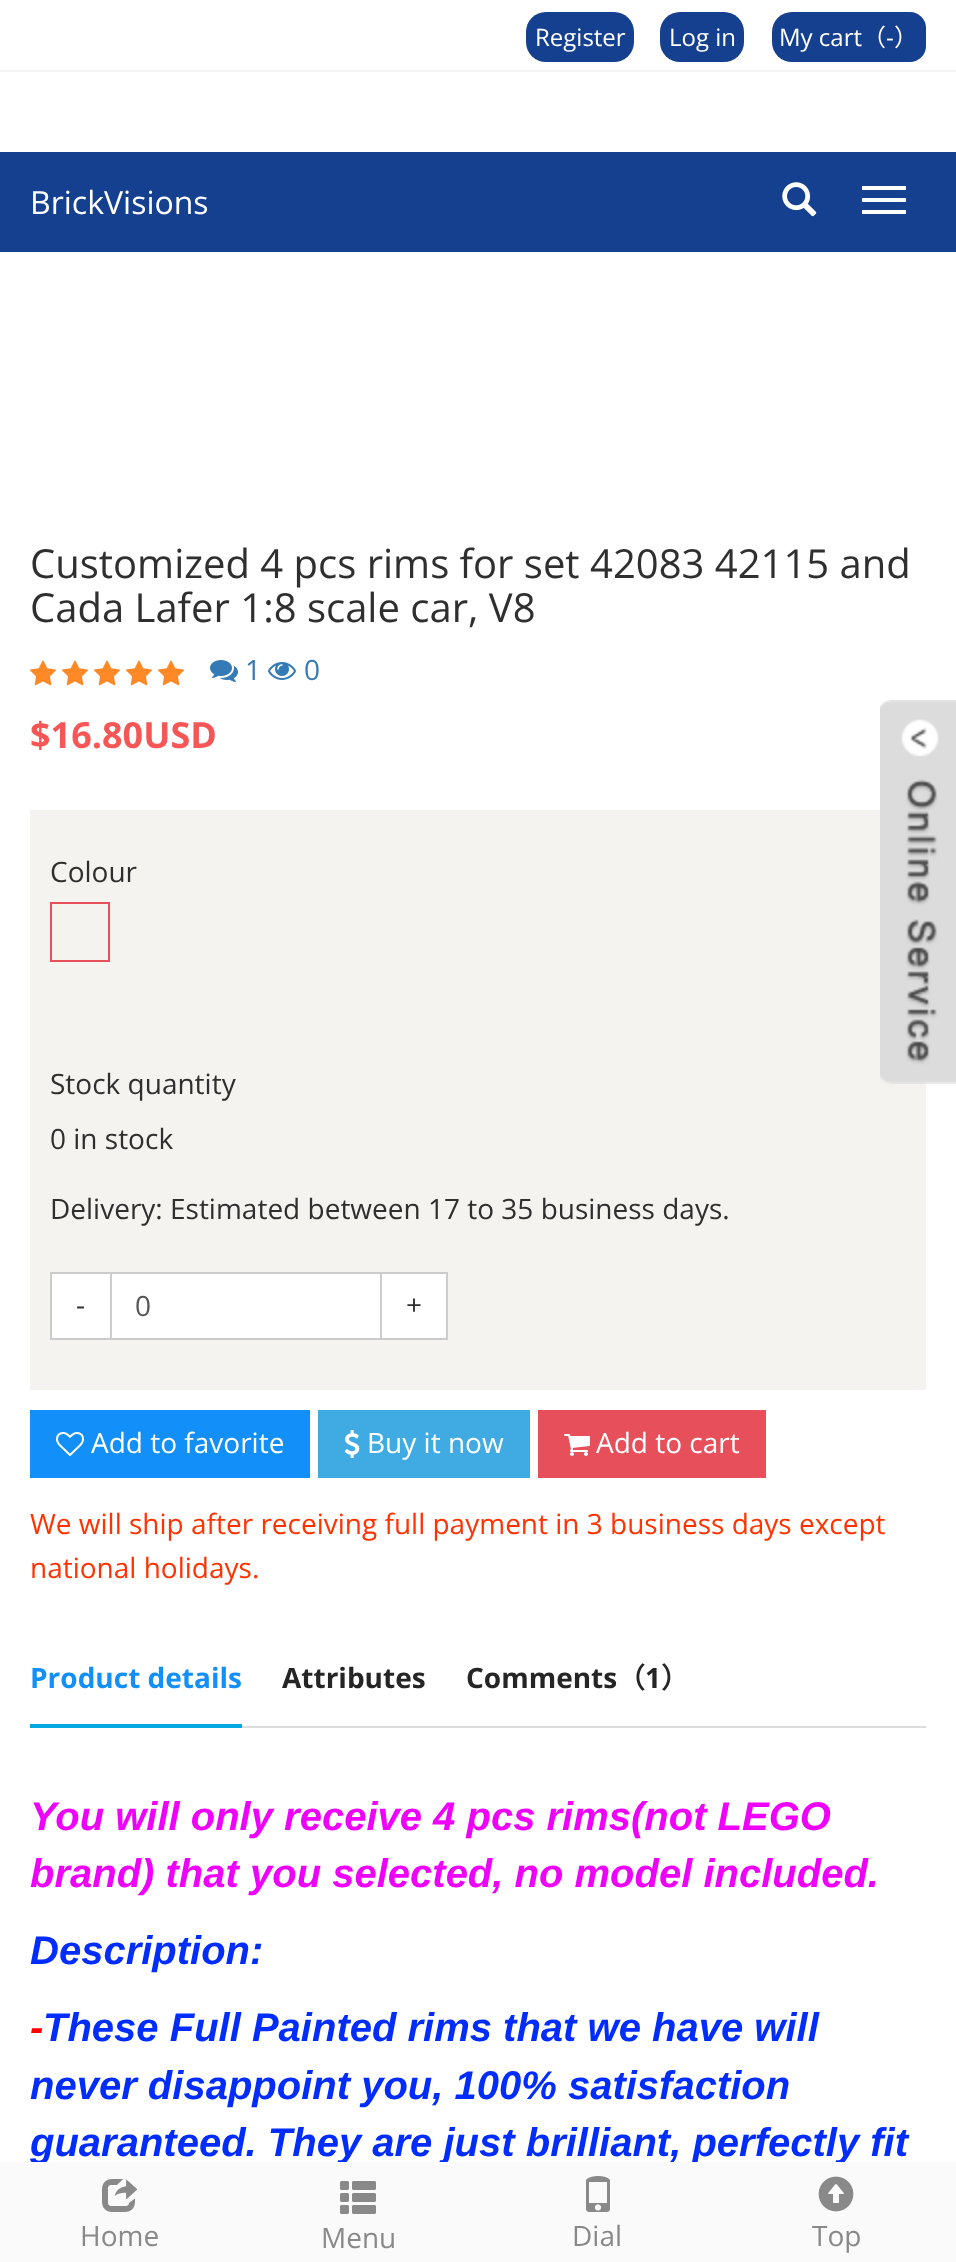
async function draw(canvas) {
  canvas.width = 956;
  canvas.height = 2262;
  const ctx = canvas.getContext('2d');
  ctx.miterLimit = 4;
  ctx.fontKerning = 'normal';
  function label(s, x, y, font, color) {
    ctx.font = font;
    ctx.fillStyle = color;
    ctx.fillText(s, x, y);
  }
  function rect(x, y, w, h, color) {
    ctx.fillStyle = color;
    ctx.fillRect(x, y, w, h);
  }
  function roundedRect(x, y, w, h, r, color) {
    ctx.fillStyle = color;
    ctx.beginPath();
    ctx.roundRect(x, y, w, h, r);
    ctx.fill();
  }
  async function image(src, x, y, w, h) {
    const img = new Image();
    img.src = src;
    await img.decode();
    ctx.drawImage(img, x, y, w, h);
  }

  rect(0, 0, 956, 2262, '#fff');
  rect(0, 70, 956, 2, '#f1f1f1');
  roundedRect(526, 12, 108, 50, 20, '#153f8f');
  label('Register', 535, 46, '24px Open Sans', '#fff');
  roundedRect(660, 12, 84, 50, 20, '#153f8f');
  label('Log in', 669, 46, '24px Open Sans', '#fff');
  ctx.fillStyle = '#153f8f';
  ctx.beginPath();
  ctx.roundRect(772, 12, 114, 50, [20, 0, 0, 20]);
  ctx.fill();
  label('My cart', 779, 46, '24px Open Sans', '#fff');
  label('（', 862, 46, '24px Noto Sans CJK SC', '#fff');
  rect(886, 12, 8, 50, '#153f8f');
  label('-', 886, 46, '24px Open Sans', '#fff');
  ctx.fillStyle = '#153f8f';
  ctx.beginPath();
  ctx.roundRect(894, 12, 32, 50, [0, 16, 16, 0]);
  ctx.fill();
  label('）', 894, 46, '24px Noto Sans CJK SC', '#fff');
  rect(0, 152, 956, 100, '#153f8f');
  label('BrickVisions', 30, 214, '32px Open Sans', '#fff');
  await image('assets/img1.png', 782, 182, 35, 35);
  rect(862, 186, 44, 4, '#fff');
  rect(862, 198, 44, 4, '#fff');
  rect(862, 210, 44, 4, '#fff');
  label('Customized 4 pcs rims for set 42083 42115 and', 30, 578, '40px Open Sans', '#2f2f2f');
  label('Cada Lafer 1:8 scale car, V8', 30, 622, '40px Open Sans', '#2f2f2f');
  await image('assets/img2.png', 30, 660, 26, 26);
  await image('assets/img2.png', 62, 660, 26, 26);
  await image('assets/img2.png', 94, 660, 26, 26);
  await image('assets/img2.png', 126, 660, 26, 26);
  await image('assets/img2.png', 158, 660, 26, 26);
  await image('assets/img3.png', 210, 660, 28, 22);
  label('1', 245, 680, '28px Open Sans', '#337ab7');
  await image('assets/img4.png', 268, 662, 28, 18);
  label('0', 304, 680, '28px Open Sans', '#337ab7');
  label('$16.80USD', 30, 748, 'bold 36px Open Sans', '#f65656');
  rect(30, 810, 896, 580, '#f5f3ef');
  label('Colour', 50, 882, '28px Open Sans', '#2f2f2f');
  ctx.strokeStyle = '#e7505a';
  ctx.lineWidth = 2;
  ctx.strokeRect(51, 903, 58, 58);
  label('Stock quantity', 50, 1094, '28px Open Sans', '#2f2f2f');
  label('0 in stock', 50, 1149, '28px Open Sans', '#2f2f2f');
  label('Delivery: Estimated between 17 to 35 business days.', 50, 1219, '28px Open Sans', '#2f2f2f');
  ctx.fillStyle = '#fff';
  ctx.beginPath();
  ctx.rect(51, 1273, 60, 66);
  ctx.fill();
  ctx.strokeStyle = '#ccc';
  ctx.stroke();
  label('-', 76, 1315, '28px Open Sans', '#2f2f2f');
  ctx.fillStyle = '#fff';
  ctx.beginPath();
  ctx.rect(111, 1273, 270, 66);
  ctx.fill();
  ctx.stroke();
  label('0', 135, 1316, '28px Open Sans', '#555');
  ctx.fillStyle = '#fff';
  ctx.beginPath();
  ctx.rect(381, 1273, 66, 66);
  ctx.fill();
  ctx.stroke();
  label('+', 406, 1315, '28px Open Sans', '#2f2f2f');
  rect(30, 1410, 280, 68, '#128ff9');
  await image('assets/img5.png', 56, 1432, 28, 24);
  label('Add to favorite', 91, 1453, '28px Open Sans', '#fff');
  rect(318, 1410, 212, 68, '#40aae2');
  await image('assets/img6.png', 344, 1430, 16, 28);
  label('Buy it now', 367, 1453, '28px Open Sans', '#fff');
  rect(538, 1410, 228, 68, '#e7505a');
  await image('assets/img7.png', 564, 1434, 26, 22);
  label('Add to cart', 596, 1453, '28px Open Sans', '#fff');
  label('We will ship after receiving full payment in 3 business days except', 30, 1534, '28px Open Sans', '#f30');
  label('national holidays.', 30, 1578, '28px Open Sans', '#f30');
  rect(242, 1726, 684, 2, '#ddd');
  label('Product details', 30, 1688, 'bold 28px Open Sans', '#128ff9');
  rect(30, 1724, 212, 4, '#00a9e0');
  label('Attributes', 282, 1688, 'bold 28px Open Sans', '#252525');
  label('Comments', 466, 1688, 'bold 28px Open Sans', '#252525');
  label('（', 617, 1688, 'bold 28px Noto Sans CJK SC', '#252525');
  label('1', 645, 1688, 'bold 28px Open Sans', '#252525');
  label('）', 661, 1688, 'bold 28px Noto Sans CJK SC', '#252525');
  label('You will only receive 4 pcs rims(not LEGO', 30, 1830, 'italic bold 40px Liberation Sans', '#ef00fd');
  label('brand) that you selected, no model included.', 30, 1887, 'italic bold 40px Liberation Sans', '#ef00fd');
  label('Description:', 30, 1964, 'italic bold 40px Liberation Sans', '#002cfd');
  label('-', 30, 2041, 'italic bold 40px Liberation Sans', '#f00');
  label('These Full Painted rims that we have will', 43, 2041, 'italic bold 40px Liberation Sans', '#002cfd');
  label('never disappoint you, 100% satisfaction', 30, 2099, 'italic bold 40px Liberation Sans', '#002cfd');
  label('guaranteed. They are just brilliant, perfectly fit', 30, 2156, 'italic bold 40px Liberation Sans', '#002cfd');
  await image('assets/img8.png', 880, 700, 76, 384);
  rect(0, 2162, 956, 100, '#fafafa');
  await image('assets/img9.png', 102, 2179, 35, 33);
  label('Home', 80, 2246, '28px Open Sans', '#898989');
  await image('assets/img10.png', 340, 2181, 36, 33);
  label('Menu', 321, 2248, '28px Open Sans', '#898989');
  await image('assets/img11.png', 586, 2176, 24, 36);
  label('Dial', 572, 2246, '28px Open Sans', '#898989');
  await image('assets/img12.png', 818, 2176, 36, 36);
  label('Top', 812, 2246, '28px Open Sans', '#898989');
}

draw(document.querySelector('canvas'));
